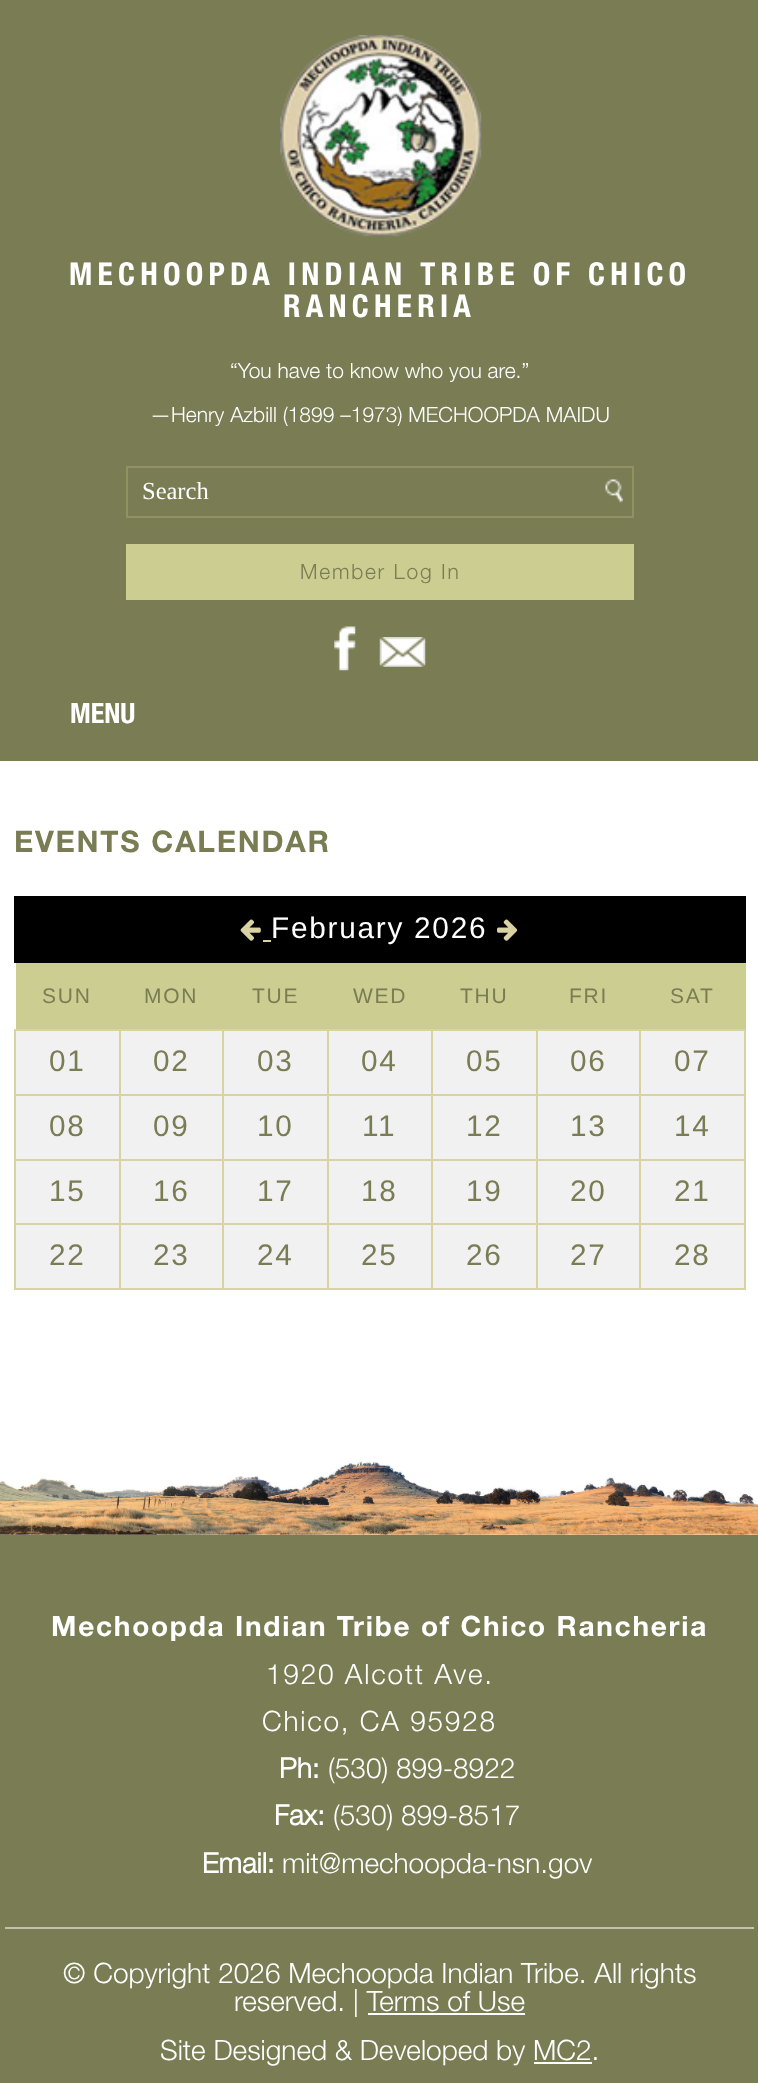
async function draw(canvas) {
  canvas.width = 758;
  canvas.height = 2083;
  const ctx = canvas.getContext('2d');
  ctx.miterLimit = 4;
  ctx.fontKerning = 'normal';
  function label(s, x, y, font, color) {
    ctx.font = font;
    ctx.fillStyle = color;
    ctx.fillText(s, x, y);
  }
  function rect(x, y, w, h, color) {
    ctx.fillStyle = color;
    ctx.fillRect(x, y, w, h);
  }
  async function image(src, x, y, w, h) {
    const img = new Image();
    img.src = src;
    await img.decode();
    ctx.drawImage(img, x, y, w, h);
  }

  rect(0, 0, 758, 2083, '#fff');
  rect(0, 0, 758, 761, '#7a7c54');
  await image('assets/img1.png', 280, 35, 202, 202);
  ctx.letterSpacing = '5.25px';
  label('MECHOOPDA INDIAN TRIBE OF CHICO', 69, 285, 'bold 31.5px Helvetica Neue', '#fff');
  label('RANCHERIA', 283, 317, 'bold 31.5px Helvetica Neue', '#fff');
  ctx.letterSpacing = '0px';
  label('“You have to know who you are.”', 230, 378, '300 21px Helvetica Neue', '#fff');
  label('—Henry Azbill (1899 –1973) MECHOOPDA MAIDU', 150, 422, '300 21px Helvetica Neue', '#fff');
  ctx.strokeStyle = '#909264';
  ctx.lineWidth = 2;
  ctx.strokeRect(127, 467, 506, 50);
  label('Search', 142, 499, '24.5px Liberation Serif', '#fff');
  await image('assets/img2.png', 605, 479, 18, 24);
  rect(126, 544, 508, 56, '#cbcd91');
  ctx.letterSpacing = '1.75px';
  label('Member Log In', 300, 579, '300 21px Helvetica Neue', '#7a7c54');
  await image('assets/img3.png', 334, 626, 22, 45);
  await image('assets/img4.png', 379, 637, 47, 30);
  ctx.letterSpacing = '0px';
  label('MENU', 70, 723, 'bold 28px Helvetica Neue', '#fff');
  await image('assets/img5.png', 0, 1461, 758, 74);
  ctx.letterSpacing = '1.75px';
  label('EVENTS CALENDAR', 14, 852, 'bold 29.75px "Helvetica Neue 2"', '#7a7c54');
  rect(14, 896, 732, 67, '#000');
  await image('assets/img6.png', 240, 919, 21, 22);
  rect(263, 940, 8, 2, '#d9d3a4');
  label('February 2026', 271, 938, '29.75px Liberation Sans', '#fff');
  await image('assets/img7.png', 497, 919, 21, 22);
  rect(16, 963, 730, 66, '#cbcd91');
  label('SUN', 42, 1003, '21px Liberation Sans', '#7a7c54');
  label('MON', 144, 1003, '21px Liberation Sans', '#7a7c54');
  label('TUE', 252, 1003, '21px Liberation Sans', '#7a7c54');
  label('WED', 353, 1003, '21px Liberation Sans', '#7a7c54');
  label('THU', 460, 1003, '21px Liberation Sans', '#7a7c54');
  label('FRI', 569, 1003, '21px Liberation Sans', '#7a7c54');
  label('SAT', 670, 1003, '21px Liberation Sans', '#7a7c54');
  rect(16, 1031, 103, 63, '#f1f1f1');
  rect(639, 1029, 107, 2, '#d9d3a4');
  rect(639, 1094, 107, 2, '#d9d3a4');
  rect(639, 1159, 107, 2, '#d9d3a4');
  rect(639, 1223, 107, 2, '#d9d3a4');
  rect(744, 1223, 2, 67, '#d9d3a4');
  rect(639, 1288, 107, 2, '#d9d3a4');
  rect(639, 1223, 2, 67, '#d9d3a4');
  rect(536, 1223, 105, 2, '#d9d3a4');
  rect(639, 1159, 2, 66, '#d9d3a4');
  rect(536, 1159, 105, 2, '#d9d3a4');
  rect(639, 1094, 2, 66, '#d9d3a4');
  rect(536, 1094, 105, 2, '#d9d3a4');
  rect(639, 1029, 2, 67, '#d9d3a4');
  rect(536, 1029, 105, 2, '#d9d3a4');
  rect(536, 1288, 105, 2, '#d9d3a4');
  rect(536, 1223, 2, 67, '#d9d3a4');
  rect(431, 1223, 106, 2, '#d9d3a4');
  rect(536, 1159, 2, 66, '#d9d3a4');
  rect(431, 1159, 106, 2, '#d9d3a4');
  rect(536, 1094, 2, 66, '#d9d3a4');
  rect(431, 1094, 106, 2, '#d9d3a4');
  rect(536, 1029, 2, 67, '#d9d3a4');
  rect(431, 1029, 106, 2, '#d9d3a4');
  rect(431, 1288, 106, 2, '#d9d3a4');
  rect(431, 1223, 2, 67, '#d9d3a4');
  rect(327, 1223, 105, 2, '#d9d3a4');
  rect(431, 1159, 2, 66, '#d9d3a4');
  rect(327, 1159, 105, 2, '#d9d3a4');
  rect(431, 1094, 2, 66, '#d9d3a4');
  rect(327, 1094, 105, 2, '#d9d3a4');
  rect(431, 1029, 2, 67, '#d9d3a4');
  rect(327, 1029, 105, 2, '#d9d3a4');
  rect(327, 1288, 105, 2, '#d9d3a4');
  rect(327, 1223, 2, 67, '#d9d3a4');
  rect(222, 1223, 107, 2, '#d9d3a4');
  rect(327, 1159, 2, 66, '#d9d3a4');
  rect(222, 1159, 107, 2, '#d9d3a4');
  rect(327, 1094, 2, 66, '#d9d3a4');
  rect(222, 1094, 107, 2, '#d9d3a4');
  rect(327, 1029, 2, 67, '#d9d3a4');
  rect(222, 1029, 107, 2, '#d9d3a4');
  rect(222, 1288, 107, 2, '#d9d3a4');
  rect(222, 1223, 2, 67, '#d9d3a4');
  rect(119, 1223, 105, 2, '#d9d3a4');
  rect(222, 1159, 2, 66, '#d9d3a4');
  rect(119, 1159, 105, 2, '#d9d3a4');
  rect(222, 1094, 2, 66, '#d9d3a4');
  rect(119, 1094, 105, 2, '#d9d3a4');
  rect(222, 1029, 2, 67, '#d9d3a4');
  rect(119, 1029, 105, 2, '#d9d3a4');
  rect(119, 1288, 105, 2, '#d9d3a4');
  rect(119, 1223, 2, 67, '#d9d3a4');
  rect(14, 1223, 107, 2, '#d9d3a4');
  rect(119, 1159, 2, 66, '#d9d3a4');
  rect(14, 1159, 107, 2, '#d9d3a4');
  rect(119, 1094, 2, 66, '#d9d3a4');
  rect(14, 1094, 107, 2, '#d9d3a4');
  rect(119, 1029, 2, 67, '#d9d3a4');
  rect(14, 1029, 107, 2, '#d9d3a4');
  rect(14, 1288, 107, 2, '#d9d3a4');
  rect(14, 1223, 2, 67, '#d9d3a4');
  rect(14, 1159, 2, 66, '#d9d3a4');
  rect(14, 1094, 2, 66, '#d9d3a4');
  rect(14, 1029, 2, 67, '#d9d3a4');
  label('01', 49, 1071, '29.75px Liberation Sans', '#7a7c54');
  rect(121, 1031, 101, 63, '#f1f1f1');
  label('02', 153, 1071, '29.75px Liberation Sans', '#7a7c54');
  rect(224, 1031, 103, 63, '#f1f1f1');
  label('03', 257, 1071, '29.75px Liberation Sans', '#7a7c54');
  rect(329, 1031, 102, 63, '#f1f1f1');
  label('04', 361, 1071, '29.75px Liberation Sans', '#7a7c54');
  rect(433, 1031, 103, 63, '#f1f1f1');
  label('05', 466, 1071, '29.75px Liberation Sans', '#7a7c54');
  rect(538, 1031, 101, 63, '#f1f1f1');
  label('06', 570, 1071, '29.75px Liberation Sans', '#7a7c54');
  rect(641, 1031, 103, 63, '#f1f1f1');
  rect(744, 1159, 2, 66, '#d9d3a4');
  rect(744, 1094, 2, 66, '#d9d3a4');
  rect(744, 1029, 2, 67, '#d9d3a4');
  label('07', 674, 1071, '29.75px Liberation Sans', '#7a7c54');
  rect(16, 1096, 103, 63, '#f1f1f1');
  label('08', 49, 1136, '29.75px Liberation Sans', '#7a7c54');
  rect(121, 1096, 101, 63, '#f1f1f1');
  label('09', 153, 1136, '29.75px Liberation Sans', '#7a7c54');
  rect(224, 1096, 103, 63, '#f1f1f1');
  label('10', 257, 1136, '29.75px Liberation Sans', '#7a7c54');
  rect(329, 1096, 102, 63, '#f1f1f1');
  label('11', 362, 1136, '29.75px Liberation Sans', '#7a7c54');
  rect(433, 1096, 103, 63, '#f1f1f1');
  label('12', 466, 1136, '29.75px Liberation Sans', '#7a7c54');
  rect(538, 1096, 101, 63, '#f1f1f1');
  label('13', 570, 1136, '29.75px Liberation Sans', '#7a7c54');
  rect(641, 1096, 103, 63, '#f1f1f1');
  label('14', 674, 1136, '29.75px Liberation Sans', '#7a7c54');
  rect(16, 1161, 103, 62, '#f1f1f1');
  label('15', 49, 1201, '29.75px Liberation Sans', '#7a7c54');
  rect(121, 1161, 101, 62, '#f1f1f1');
  label('16', 153, 1201, '29.75px Liberation Sans', '#7a7c54');
  rect(224, 1161, 103, 62, '#f1f1f1');
  label('17', 257, 1201, '29.75px Liberation Sans', '#7a7c54');
  rect(329, 1161, 102, 62, '#f1f1f1');
  label('18', 361, 1201, '29.75px Liberation Sans', '#7a7c54');
  rect(433, 1161, 103, 62, '#f1f1f1');
  label('19', 466, 1201, '29.75px Liberation Sans', '#7a7c54');
  rect(538, 1161, 101, 62, '#f1f1f1');
  label('20', 570, 1201, '29.75px Liberation Sans', '#7a7c54');
  rect(641, 1161, 103, 62, '#f1f1f1');
  label('21', 674, 1201, '29.75px Liberation Sans', '#7a7c54');
  rect(16, 1225, 103, 63, '#f1f1f1');
  label('22', 49, 1265, '29.75px Liberation Sans', '#7a7c54');
  rect(121, 1225, 101, 63, '#f1f1f1');
  label('23', 153, 1265, '29.75px Liberation Sans', '#7a7c54');
  rect(224, 1225, 103, 63, '#f1f1f1');
  label('24', 257, 1265, '29.75px Liberation Sans', '#7a7c54');
  rect(329, 1225, 102, 63, '#f1f1f1');
  label('25', 361, 1265, '29.75px Liberation Sans', '#7a7c54');
  rect(433, 1225, 103, 63, '#f1f1f1');
  label('26', 466, 1265, '29.75px Liberation Sans', '#7a7c54');
  rect(538, 1225, 101, 63, '#f1f1f1');
  label('27', 570, 1265, '29.75px Liberation Sans', '#7a7c54');
  rect(641, 1225, 103, 63, '#f1f1f1');
  label('28', 674, 1265, '29.75px Liberation Sans', '#7a7c54');
  rect(0, 1535, 758, 548, '#7a7c54');
  label('Mechoopda Indian Tribe of Chico Rancheria', 51, 1636, 'bold 28px "Helvetica Neue 2"', '#fff');
  label('1920 Alcott Ave.', 266, 1684, '300 28px Helvetica Neue', '#fff');
  label('Chico, CA 95928', 262, 1731, '300 28px Helvetica Neue', '#fff');
  ctx.letterSpacing = '0px';
  label('Ph:', 279, 1778, 'bold 28px "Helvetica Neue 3"', '#fff');
  label('(530) 899-8922', 328, 1778, '300 28px Helvetica Neue', '#fff');
  label('Fax:', 274, 1825, 'bold 28px "Helvetica Neue 3"', '#fff');
  label('(530) 899-8517', 333, 1825, '300 28px Helvetica Neue', '#fff');
  label('Email:', 202, 1873, 'bold 28px "Helvetica Neue 3"', '#fff');
  label('mit@mechoopda-nsn.gov', 282, 1873, '300 28px Helvetica Neue', '#fff');
  rect(5, 1927, 749, 2, '#c1c2af');
  label('© Copyright 2026 Mechoopda Indian Tribe. All rights', 63, 1983, '300 28px Helvetica Neue', '#fff');
  label('reserved. | Terms of Use', 234, 2011, '300 28px Helvetica Neue', '#fff');
  rect(368, 2013, 157, 2, '#fff');
  label('Site Designed & Developed by MC2.', 160, 2060, '300 28px Helvetica Neue', '#fff');
  rect(534, 2062, 58, 2, '#fff');
}

draw(document.querySelector('canvas'));
